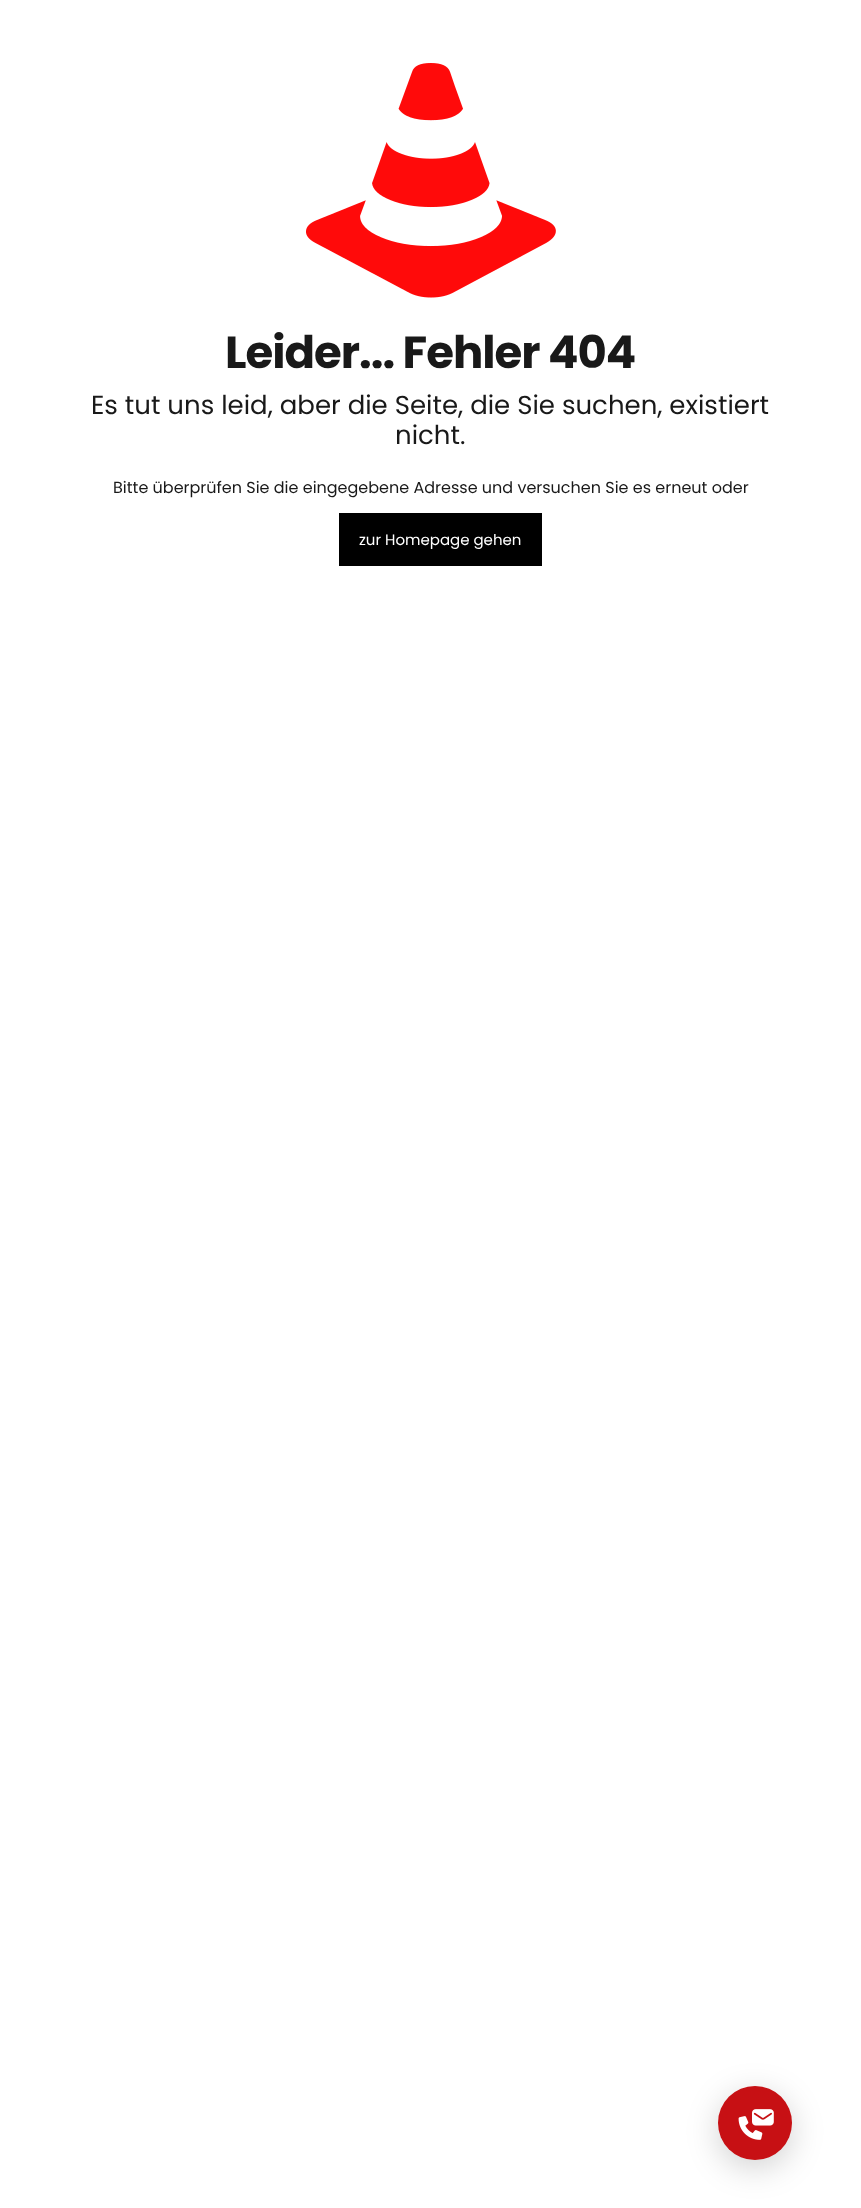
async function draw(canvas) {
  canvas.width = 861;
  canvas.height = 2208;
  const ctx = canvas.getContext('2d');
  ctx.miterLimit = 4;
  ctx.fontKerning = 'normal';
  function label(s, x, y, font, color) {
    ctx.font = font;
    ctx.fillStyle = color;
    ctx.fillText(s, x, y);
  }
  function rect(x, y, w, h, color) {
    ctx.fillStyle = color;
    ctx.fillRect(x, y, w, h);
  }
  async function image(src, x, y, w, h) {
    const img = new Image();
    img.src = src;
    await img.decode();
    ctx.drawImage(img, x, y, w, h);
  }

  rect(0, 0, 861, 2208, '#fff');
  await image('assets/img1.png', 306, 63, 250, 235);
  ctx.letterSpacing = '-1px';
  label('Leider... Fehler 404', 225, 368, 'bold 45px Poppins', '#191919');
  ctx.letterSpacing = '0px';
  label('Es tut uns leid, aber die Seite, die Sie suchen, existiert', 91, 414, '26px Poppins', '#191919');
  label('nicht.', 395, 444, '26px Poppins', '#191919');
  label('Bitte überprüfen Sie die eingegebene Adresse und versuchen Sie es erneut oder', 113, 493, '16px Poppins', '#191919');
  rect(339, 513, 203, 53, '#000');
  label('zur Homepage gehen', 359, 545, '15px Poppins', '#fff');
  ctx.fillStyle = '#0000002e';
  ctx.filter = 'blur(16px)';
  ctx.beginPath();
  ctx.roundRect(718, 2094, 74, 74, 37);
  ctx.fill();
  ctx.filter = 'none';
  ctx.fillStyle = '#c71014';
  ctx.beginPath();
  ctx.arc(755, 2123, 37, 0, 2 * Math.PI);
  ctx.fill();
  await image('assets/img2.png', 738, 2109, 36, 31);
}

draw(document.querySelector('canvas'));
